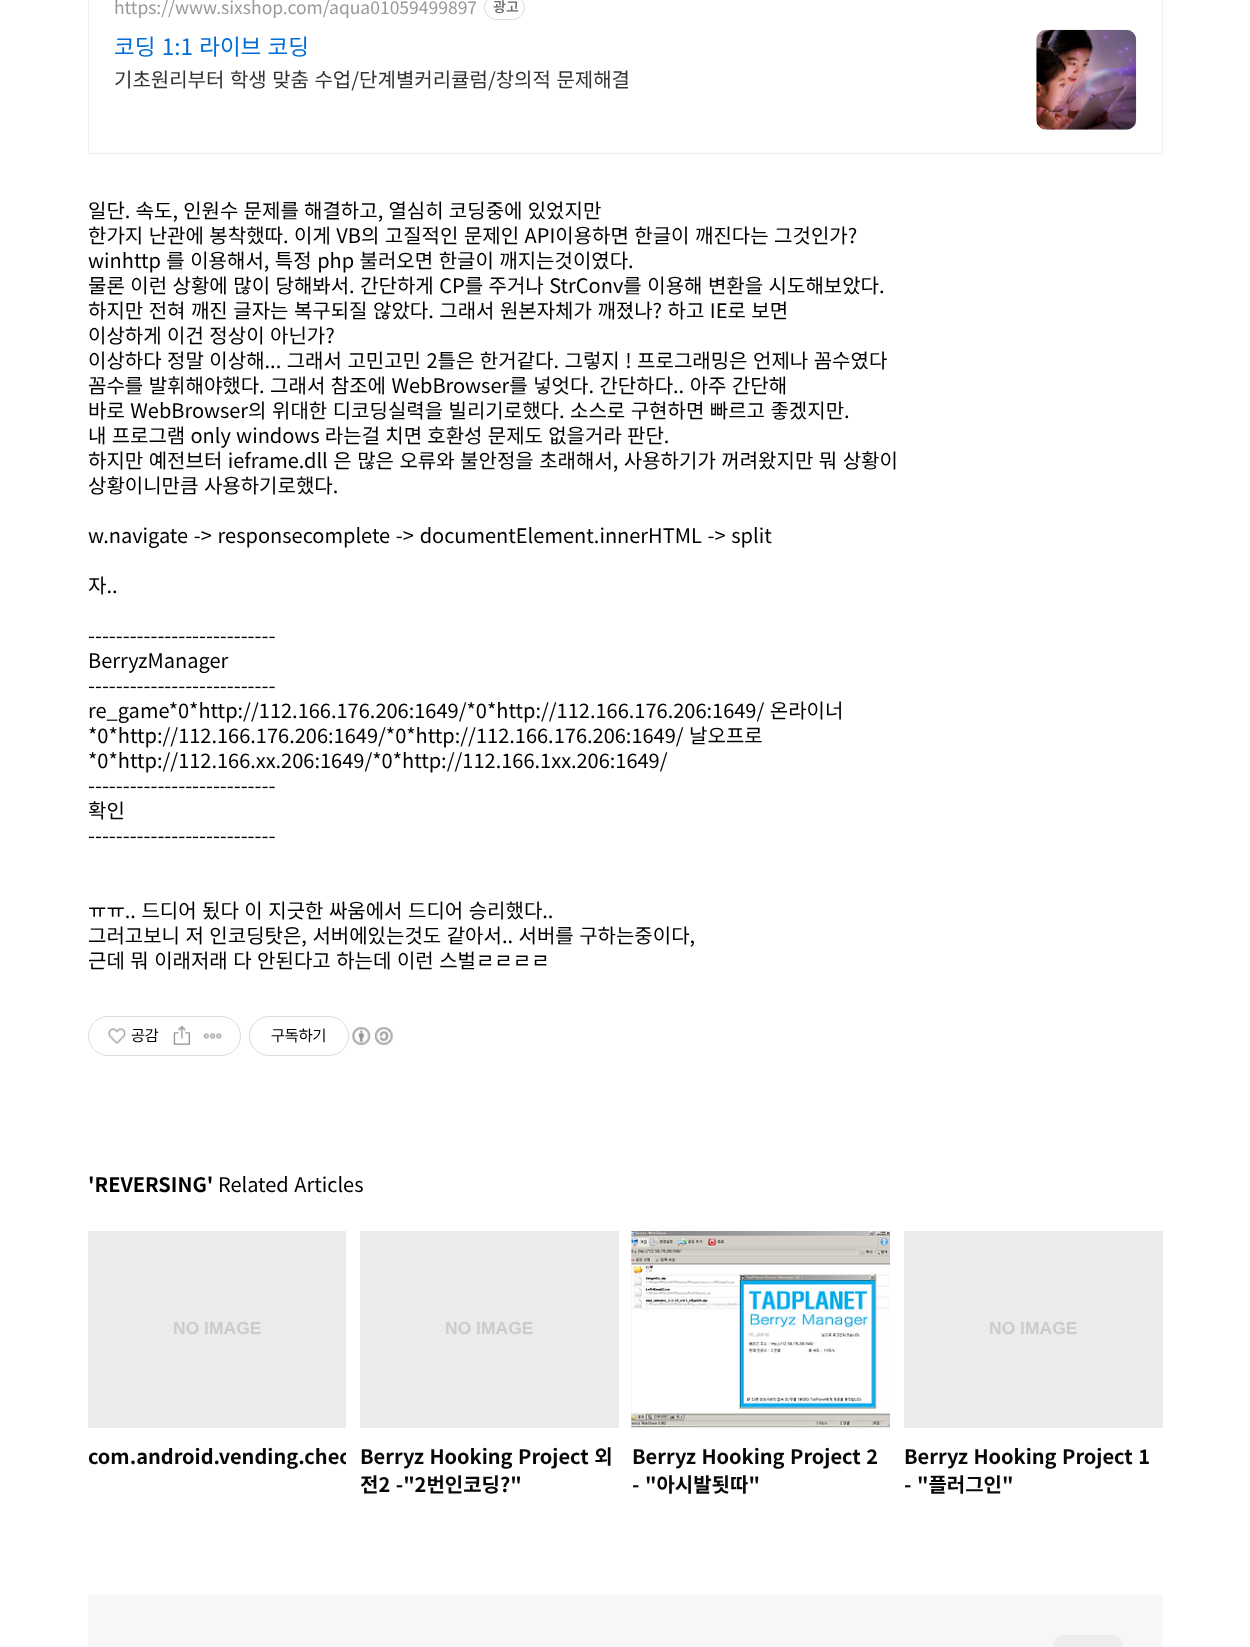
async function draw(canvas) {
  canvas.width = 1250;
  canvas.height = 1647;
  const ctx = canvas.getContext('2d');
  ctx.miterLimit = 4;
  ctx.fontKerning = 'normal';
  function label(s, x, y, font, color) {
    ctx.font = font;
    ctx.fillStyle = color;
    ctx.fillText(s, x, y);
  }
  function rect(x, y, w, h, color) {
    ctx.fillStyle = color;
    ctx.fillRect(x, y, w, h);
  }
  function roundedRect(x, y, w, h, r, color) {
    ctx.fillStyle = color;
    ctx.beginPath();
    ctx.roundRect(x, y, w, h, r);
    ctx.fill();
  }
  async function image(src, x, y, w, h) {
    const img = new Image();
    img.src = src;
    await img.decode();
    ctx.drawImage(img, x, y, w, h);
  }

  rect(0, 0, 1250, 1647, '#fff');
  ctx.strokeStyle = '#eee';
  ctx.strokeRect(88.5, -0.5, 1074, 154);
  label('https://www.sixshop.com/aqua01059499897', 114, 14, '17.5px Noto Sans KR', '#999');
  ctx.beginPath();
  ctx.roundRect(484.5, -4.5, 40, 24, 12);
  ctx.strokeStyle = '#ddd';
  ctx.stroke();
  label('광고', 493, 12, '500 14px Noto Sans KR', '#666');
  ctx.wordSpacing = '1.25px';
  label('코딩 1:1 라이브 코딩', 114, 55, '22.5px Noto Sans KR', '#016dd7');
  ctx.wordSpacing = '1px';
  label('기초원리부터 학생 맞춤 수업/단계별커리큘럼/창의적 문제해결', 114, 87, '20px Noto Sans KR', '#333');
  await image('assets/img1.png', 1036, 29, 101, 101);
  ctx.wordSpacing = '0.75px';
  label('일단. 속도, 인원수 문제를 해결하고, 열심히 코딩중에 있었지만', 88, 218, '20px Noto Sans KR', '#000');
  ctx.wordSpacing = '1px';
  label('한가지 난관에 봉착했따. 이게 VB의 고질적인 문제인 API이용하면 한글이 깨진다는 그것인가?', 88, 243, '20px Noto Sans KR', '#000');
  label('winhttp 를 이용해서, 특정 php 불러오면 한글이 깨지는것이였다.', 88, 268, '20px Noto Sans KR', '#000');
  label('물론 이런 상황에 많이 당해봐서. 간단하게 CP를 주거나 StrConv를 이용해 변환을 시도해보았다.', 88, 293, '20px Noto Sans KR', '#000');
  label('하지만 전혀 깨진 글자는 복구되질 않았다. 그래서 원본자체가 깨졌나? 하고 IE로 보면', 88, 318, '20px Noto Sans KR', '#000');
  label('이상하게 이건 정상이 아닌가?', 88, 343, '20px Noto Sans KR', '#000');
  label('이상하다 정말 이상해... 그래서 고민고민 2틀은 한거같다. 그렇지 ! 프로그래밍은 언제나 꼼수였다', 88, 368, '20px Noto Sans KR', '#000');
  label('꼼수를 발휘해야했다. 그래서 참조에 WebBrowser를 넣엇다. 간단하다.. 아주 간단해', 88, 393, '20px Noto Sans KR', '#000');
  label('바로 WebBrowser의 위대한 디코딩실력을 빌리기로했다. 소스로 구현하면 빠르고 좋겠지만.', 88, 418, '20px Noto Sans KR', '#000');
  ctx.wordSpacing = '0.75px';
  label('내 프로그램 only windows 라는걸 치면 호환성 문제도 없을거라 판단.', 88, 443, '20px Noto Sans KR', '#000');
  ctx.wordSpacing = '1px';
  label('하지만 예전브터 ieframe.dll 은 많은 오류와 불안정을 초래해서, 사용하기가 꺼려왔지만 뭐 상황이', 88, 468, '20px Noto Sans KR', '#000');
  label('상황이니만큼 사용하기로했다.', 88, 493, '20px Noto Sans KR', '#000');
  ctx.wordSpacing = '1.25px';
  label('w.navigate -> responsecomplete -> documentElement.innerHTML -> split', 88, 543, '20px Noto Sans KR', '#000');
  ctx.wordSpacing = '0px';
  label('자..', 88, 593, '20px Noto Sans KR', '#000');
  label('---------------------------', 88, 643, '20px Noto Sans KR', '#000');
  label('BerryzManager', 88, 668, '20px Noto Sans KR', '#000');
  label('---------------------------', 88, 693, '20px Noto Sans KR', '#000');
  ctx.wordSpacing = '1px';
  label('re_game*0*http://112.166.176.206:1649/*0*http://112.166.176.206:1649/ 온라이너', 88, 718, '20px Noto Sans KR', '#000');
  label('*0*http://112.166.176.206:1649/*0*http://112.166.176.206:1649/ 날오프로', 88, 743, '20px Noto Sans KR', '#000');
  ctx.wordSpacing = '0px';
  label('*0*http://112.166.xx.206:1649/*0*http://112.166.1xx.206:1649/', 88, 768, '20px Noto Sans KR', '#000');
  label('---------------------------', 88, 793, '20px Noto Sans KR', '#000');
  label('확인', 88, 818, '20px Noto Sans KR', '#000');
  label('---------------------------', 88, 843, '20px Noto Sans KR', '#000');
  ctx.wordSpacing = '1px';
  label('ㅠㅠ.. 드디어 됬다 이 지긋한 싸움에서 드디어 승리했다..', 88, 918, '20px Noto Sans KR', '#000');
  label('그러고보니 저 인코딩탓은, 서버에있는것도 같아서.. 서버를 구하는중이다,', 88, 943, '20px Noto Sans KR', '#000');
  label('근데 뭐 이래저래 다 안된다고 하는데 이런 스벌ㄹㄹㄹㄹ', 88, 968, '20px Noto Sans KR', '#000');
  ctx.beginPath();
  ctx.roundRect(88.5, 1016.5, 152, 39, 19.5);
  ctx.strokeStyle = '#dcdcdc';
  ctx.stroke();
  await image('assets/img2.png', 107, 1028, 20, 16);
  ctx.wordSpacing = '0px';
  label('공감', 131, 1041, '16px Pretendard', '#000');
  await image('assets/img3.png', 173, 1026, 17, 19);
  await image('assets/img4.png', 203, 1033, 19, 6);
  ctx.beginPath();
  ctx.roundRect(249.5, 1016.5, 99, 39, 19.5);
  ctx.stroke();
  label('구독하기', 271, 1041, '16px Pretendard', '#000');
  await image('assets/img5.png', 352, 1027, 19, 18);
  await image('assets/img6.png', 374, 1027, 19, 18);
  label('\'REVERSING\'', 88, 1192, 'bold 20px Noto Sans KR', '#000');
  ctx.wordSpacing = '1px';
  label('Related Articles', 218, 1192, '20px Noto Sans KR', '#000');
  rect(88, 1231, 258, 197, '#ebebeb');
  ctx.wordSpacing = '0px';
  label('NO IMAGE', 173, 1334, 'bold 17.5px Liberation Sans', '#cbcbcb');
  ctx.save();
  ctx.beginPath();
  ctx.rect(88, 1443, 258, 27);
  ctx.clip();
  label('com.android.vending.chec', 88, 1464, 'bold 20px Noto Sans KR', '#080808');
  ctx.restore();
  rect(360, 1231, 259, 197, '#ebebeb');
  label('NO IMAGE', 445, 1334, 'bold 17.5px Liberation Sans', '#cbcbcb');
  ctx.wordSpacing = '1px';
  label('Berryz Hooking Project 외', 360, 1464, 'bold 20px Noto Sans KR', '#080808');
  label('전2 -"2번인코딩?"', 360, 1492, 'bold 20px Noto Sans KR', '#080808');
  rect(631, 1231, 259, 197, '#ebebeb');
  await image('assets/img7.png', 631, 1231, 259, 197);
  label('Berryz Hooking Project 2', 632, 1464, 'bold 20px Noto Sans KR', '#080808');
  label('- "아시발됫따"', 632, 1492, 'bold 20px Noto Sans KR', '#080808');
  rect(904, 1231, 259, 197, '#ebebeb');
  ctx.wordSpacing = '0px';
  label('NO IMAGE', 989, 1334, 'bold 17.5px Liberation Sans', '#cbcbcb');
  ctx.wordSpacing = '1px';
  label('Berryz Hooking Project 1', 904, 1464, 'bold 20px Noto Sans KR', '#080808');
  label('- "플러그인"', 904, 1492, 'bold 20px Noto Sans KR', '#080808');
  rect(88, 1595, 1075, 52, '#f7f7f7');
  roundedRect(1053, 1635, 70, 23, 11, '#ededed');
}

draw(document.querySelector('canvas'));
